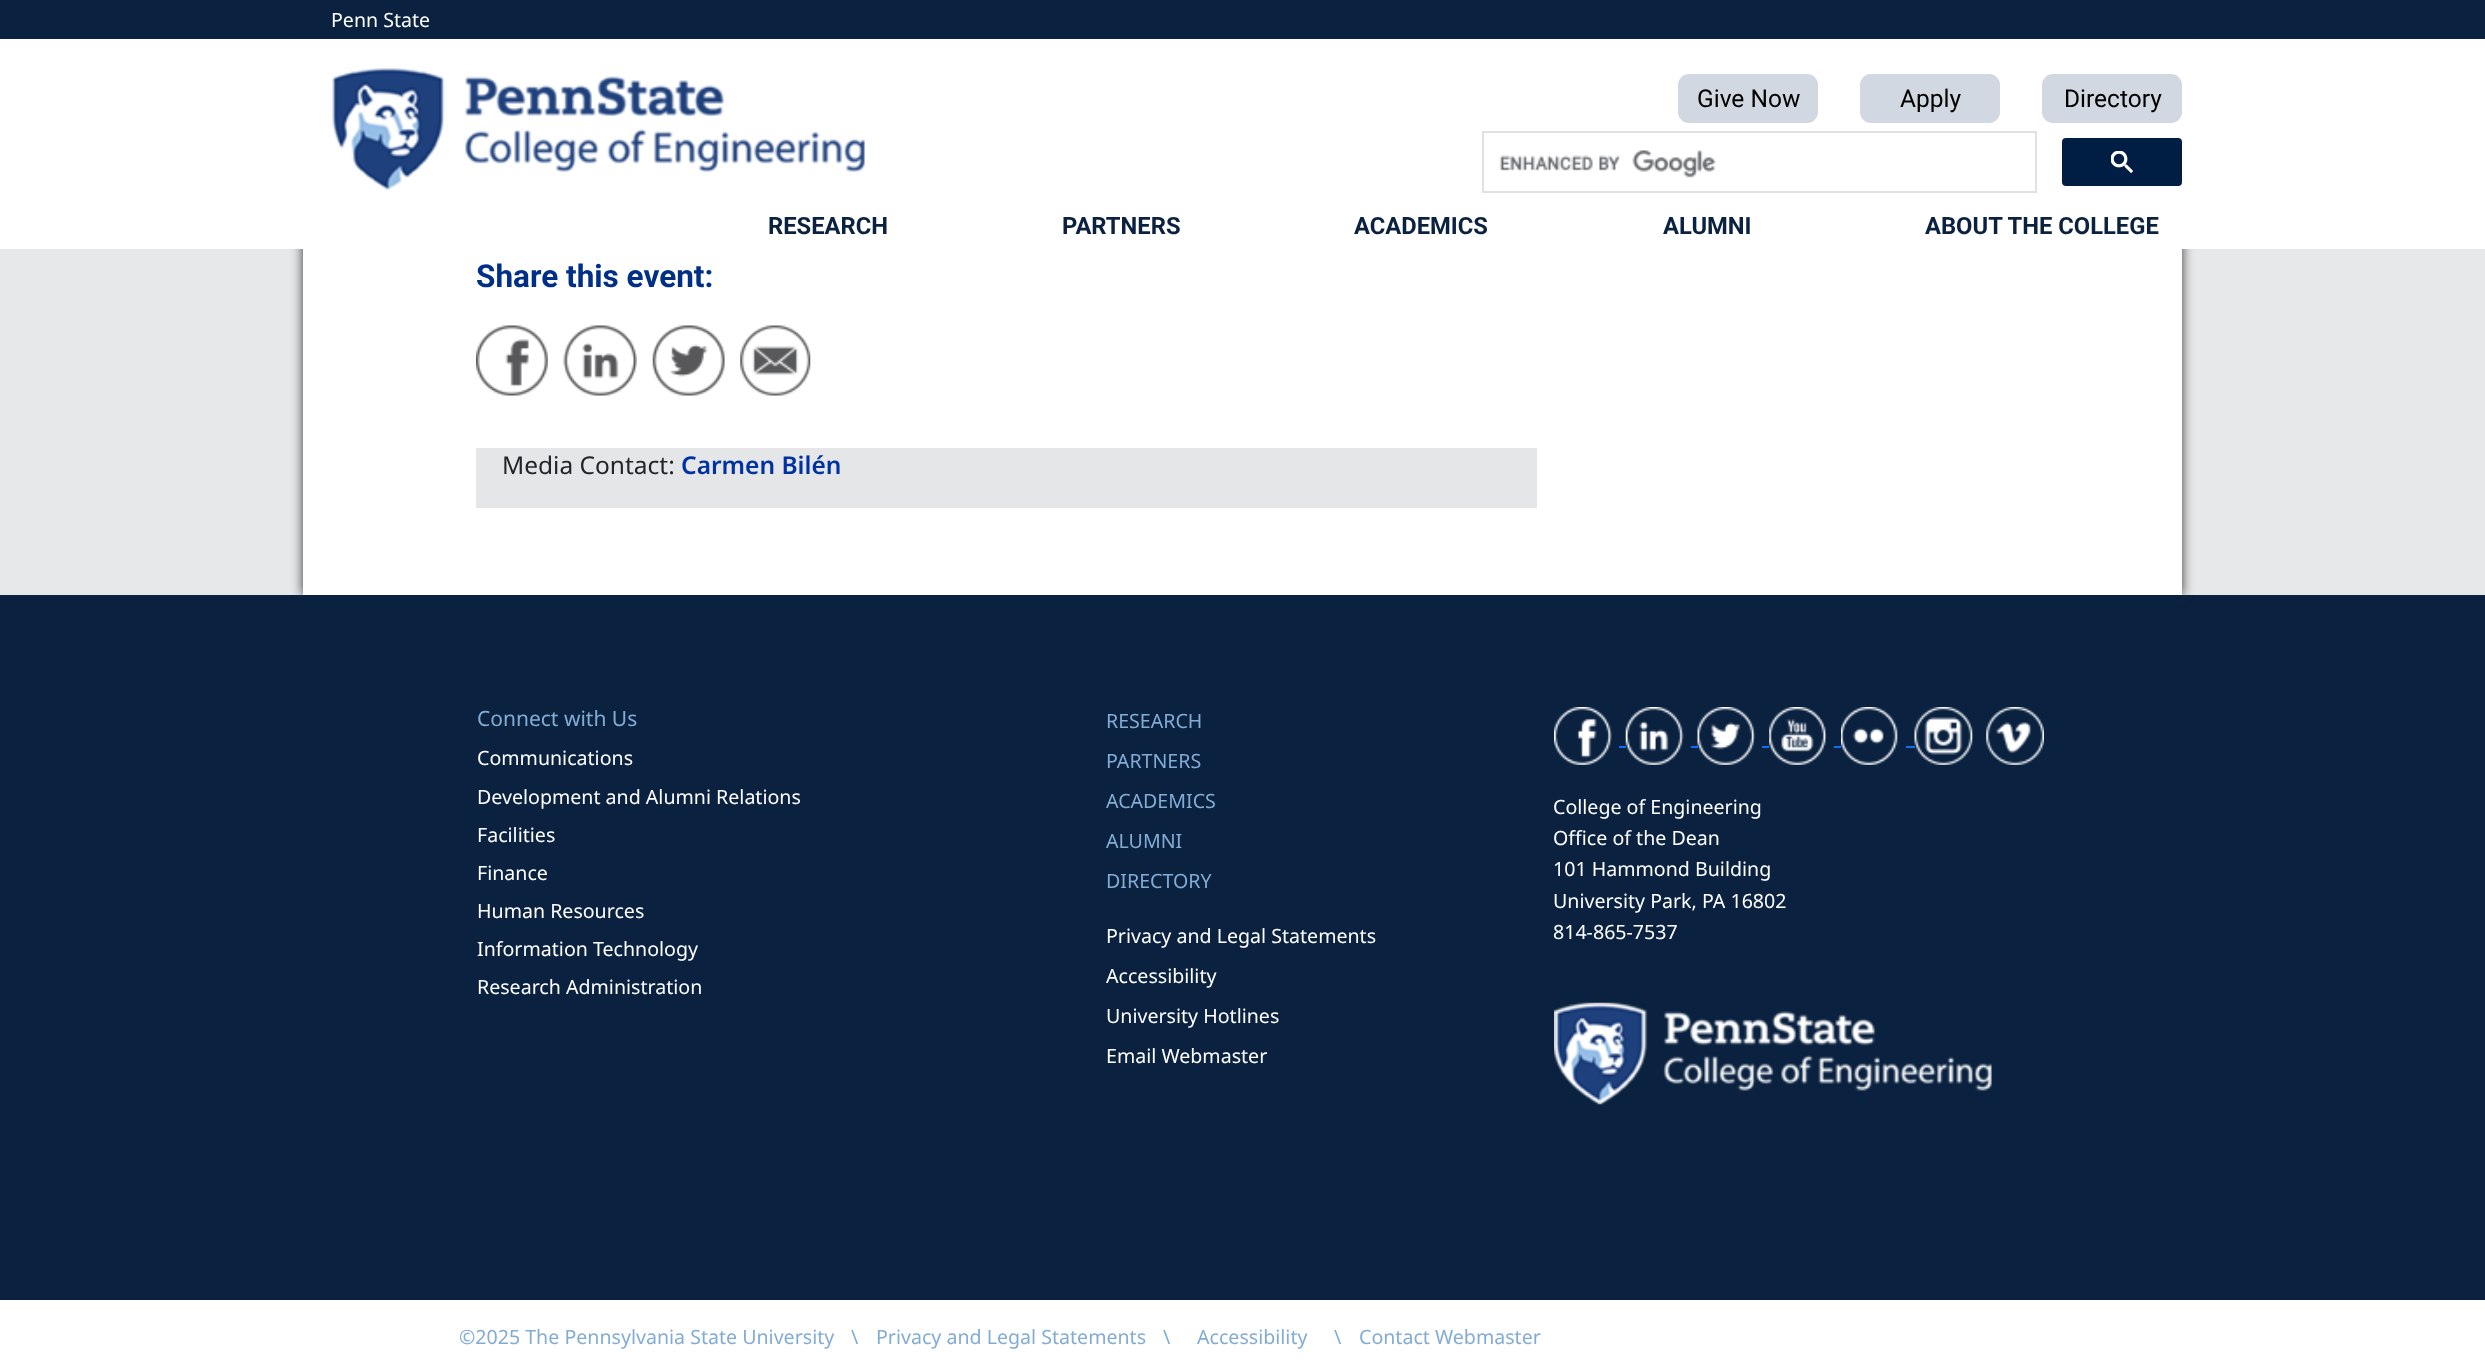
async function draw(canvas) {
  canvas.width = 2485;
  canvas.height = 1371;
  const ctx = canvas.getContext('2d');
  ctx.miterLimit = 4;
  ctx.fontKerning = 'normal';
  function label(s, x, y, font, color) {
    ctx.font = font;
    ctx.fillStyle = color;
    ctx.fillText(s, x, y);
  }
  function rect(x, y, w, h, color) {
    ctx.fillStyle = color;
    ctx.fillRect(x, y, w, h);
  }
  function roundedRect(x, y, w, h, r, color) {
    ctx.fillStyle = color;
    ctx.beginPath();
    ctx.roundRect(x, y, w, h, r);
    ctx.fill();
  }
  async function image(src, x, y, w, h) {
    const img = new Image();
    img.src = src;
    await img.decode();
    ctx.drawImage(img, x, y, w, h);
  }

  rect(0, 0, 2485, 1371, '#fff');
  rect(0, 249, 2485, 346, '#e6e8ea');
  rect(0, 595, 2485, 705, '#0a2240');
  ctx.fillStyle = '#333';
  ctx.filter = 'blur(6px)';
  ctx.beginPath();
  ctx.rect(303, -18, 1879, 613);
  ctx.fill();
  ctx.filter = 'none';
  rect(0, 0, 2485, 39, '#0a2240');
  label('Penn State', 331, 27, '19.6px Noto Sans', '#fff');
  rect(290, 39, 1905, 210, '#fff');
  await image('assets/img1.png', 332, 68, 533, 122);
  roundedRect(1678, 74, 140, 49, 11, '#d2d8e1');
  label('Give Now', 1697, 107, '24.5px Roboto', '#000');
  roundedRect(1860, 74, 140, 49, 11, '#d2d8e1');
  label('Apply', 1900, 107, '24.5px Roboto', '#000');
  roundedRect(2042, 74, 140, 49, 11, '#d2d8e1');
  label('Directory', 2064, 107, '24.5px Roboto', '#000');
  ctx.strokeStyle = '#dfe1e5';
  ctx.lineWidth = 2;
  ctx.strokeRect(1483, 132, 553, 60);
  await image('assets/img2.png', 1499, 150, 217, 28);
  ctx.fillStyle = '#001e44';
  ctx.beginPath();
  ctx.roundRect(2063, 139, 118, 46, 3);
  ctx.fill();
  ctx.strokeStyle = '#001e44';
  ctx.stroke();
  await image('assets/img3.png', 2111, 151, 22, 22);
  label('RESEARCH', 768, 234, 'bold 23.75px Roboto', '#0a2240');
  label('PARTNERS', 1062, 234, 'bold 23.75px Roboto', '#0a2240');
  label('ACADEMICS', 1354, 234, 'bold 23.75px Roboto', '#0a2240');
  label('ALUMNI', 1663, 234, 'bold 23.75px Roboto', '#0a2240');
  label('ABOUT THE COLLEGE', 1925, 234, 'bold 23.75px Roboto', '#0a2240');
  rect(303, 249, 1879, 346, '#fff');
  label('Share this event:', 476, 287, 'bold 31.5px Roboto', '#002f87');
  await image('assets/img4.png', 476, 325, 72, 71);
  await image('assets/img5.png', 563, 325, 74, 71);
  await image('assets/img6.png', 652, 325, 73, 71);
  await image('assets/img7.png', 740, 325, 71, 71);
  rect(476, 448, 1061, 60, '#e5e6e8');
  label('Media Contact:', 502, 474, '24.5px Noto Sans', '#212529');
  label('Carmen Bilén', 681, 474, '600 24.5px Noto Sans', '#0033a1');
  rect(303, 595, 1879, 9, '#0a2240');
  label('Connect with Us', 477, 726, '21px Noto Sans', '#83acd5');
  label('Communications', 477, 765, '19.6px Noto Sans', '#fff');
  label('Development and Alumni Relations', 477, 804, '19.6px Noto Sans', '#fff');
  label('Facilities', 477, 842, '19.6px Noto Sans', '#fff');
  label('Finance', 477, 880, '19.6px Noto Sans', '#fff');
  label('Human Resources', 477, 918, '19.6px Noto Sans', '#fff');
  label('Information Technology', 477, 956, '19.6px Noto Sans', '#fff');
  label('Research Administration', 477, 994, '19.6px Noto Sans', '#fff');
  label('RESEARCH', 1106, 728, '19.6px Noto Sans', '#83acd5');
  label('PARTNERS', 1106, 768, '19.6px Noto Sans', '#83acd5');
  label('ACADEMICS', 1106, 808, '19.6px Noto Sans', '#83acd5');
  label('ALUMNI', 1106, 848, '19.6px Noto Sans', '#83acd5');
  label('DIRECTORY', 1106, 888, '19.6px Noto Sans', '#83acd5');
  label('Privacy and Legal Statements', 1106, 943, '19.6px Noto Sans', '#fff');
  label('Accessibility', 1106, 983, '19.6px Noto Sans', '#fff');
  label('University Hotlines', 1106, 1023, '19.6px Noto Sans', '#fff');
  label('Email Webmaster', 1106, 1063, '19.6px Noto Sans', '#fff');
  await image('assets/img8.png', 1554, 707, 58, 58);
  rect(1619, 746, 7, 2, '#0d6efd');
  await image('assets/img9.png', 1625, 707, 59, 58);
  rect(1691, 746, 7, 2, '#0d6efd');
  await image('assets/img10.png', 1697, 707, 59, 58);
  rect(1762, 746, 7, 2, '#0d6efd');
  await image('assets/img11.png', 1769, 707, 58, 58);
  rect(1834, 746, 7, 2, '#0d6efd');
  await image('assets/img12.png', 1841, 707, 57, 58);
  rect(1906, 746, 9, 2, '#0d6efd');
  await image('assets/img13.png', 1914, 707, 59, 58);
  await image('assets/img14.png', 1986, 707, 58, 58);
  label('College of Engineering', 1553, 814, '19.6px Noto Sans', '#fff');
  label('Office of the Dean', 1553, 845, '19.6px Noto Sans', '#fff');
  label('101 Hammond Building', 1553, 876, '19.6px Noto Sans', '#fff');
  label('University Park, PA 16802', 1553, 908, '19.6px Noto Sans', '#fff');
  label('814-865-7537', 1553, 939, '19.6px Noto Sans', '#fff');
  await image('assets/img15.png', 1554, 1002, 438, 103);
  label('©2025 The Pennsylvania State University', 459, 1344, '19.6px Noto Sans', '#83acd5');
  label('\\', 851, 1344, '19.6px Noto Sans', '#83acd5');
  label('Privacy and Legal Statements', 876, 1344, '19.6px Noto Sans', '#83acd5');
  label('\\', 1163, 1344, '19.6px Noto Sans', '#83acd5');
  label('Accessibility', 1197, 1344, '19.6px Noto Sans', '#83acd5');
  label('\\', 1334, 1344, '19.6px Noto Sans', '#83acd5');
  label('Contact Webmaster', 1359, 1344, '19.6px Noto Sans', '#83acd5');
}

draw(document.querySelector('canvas'));
